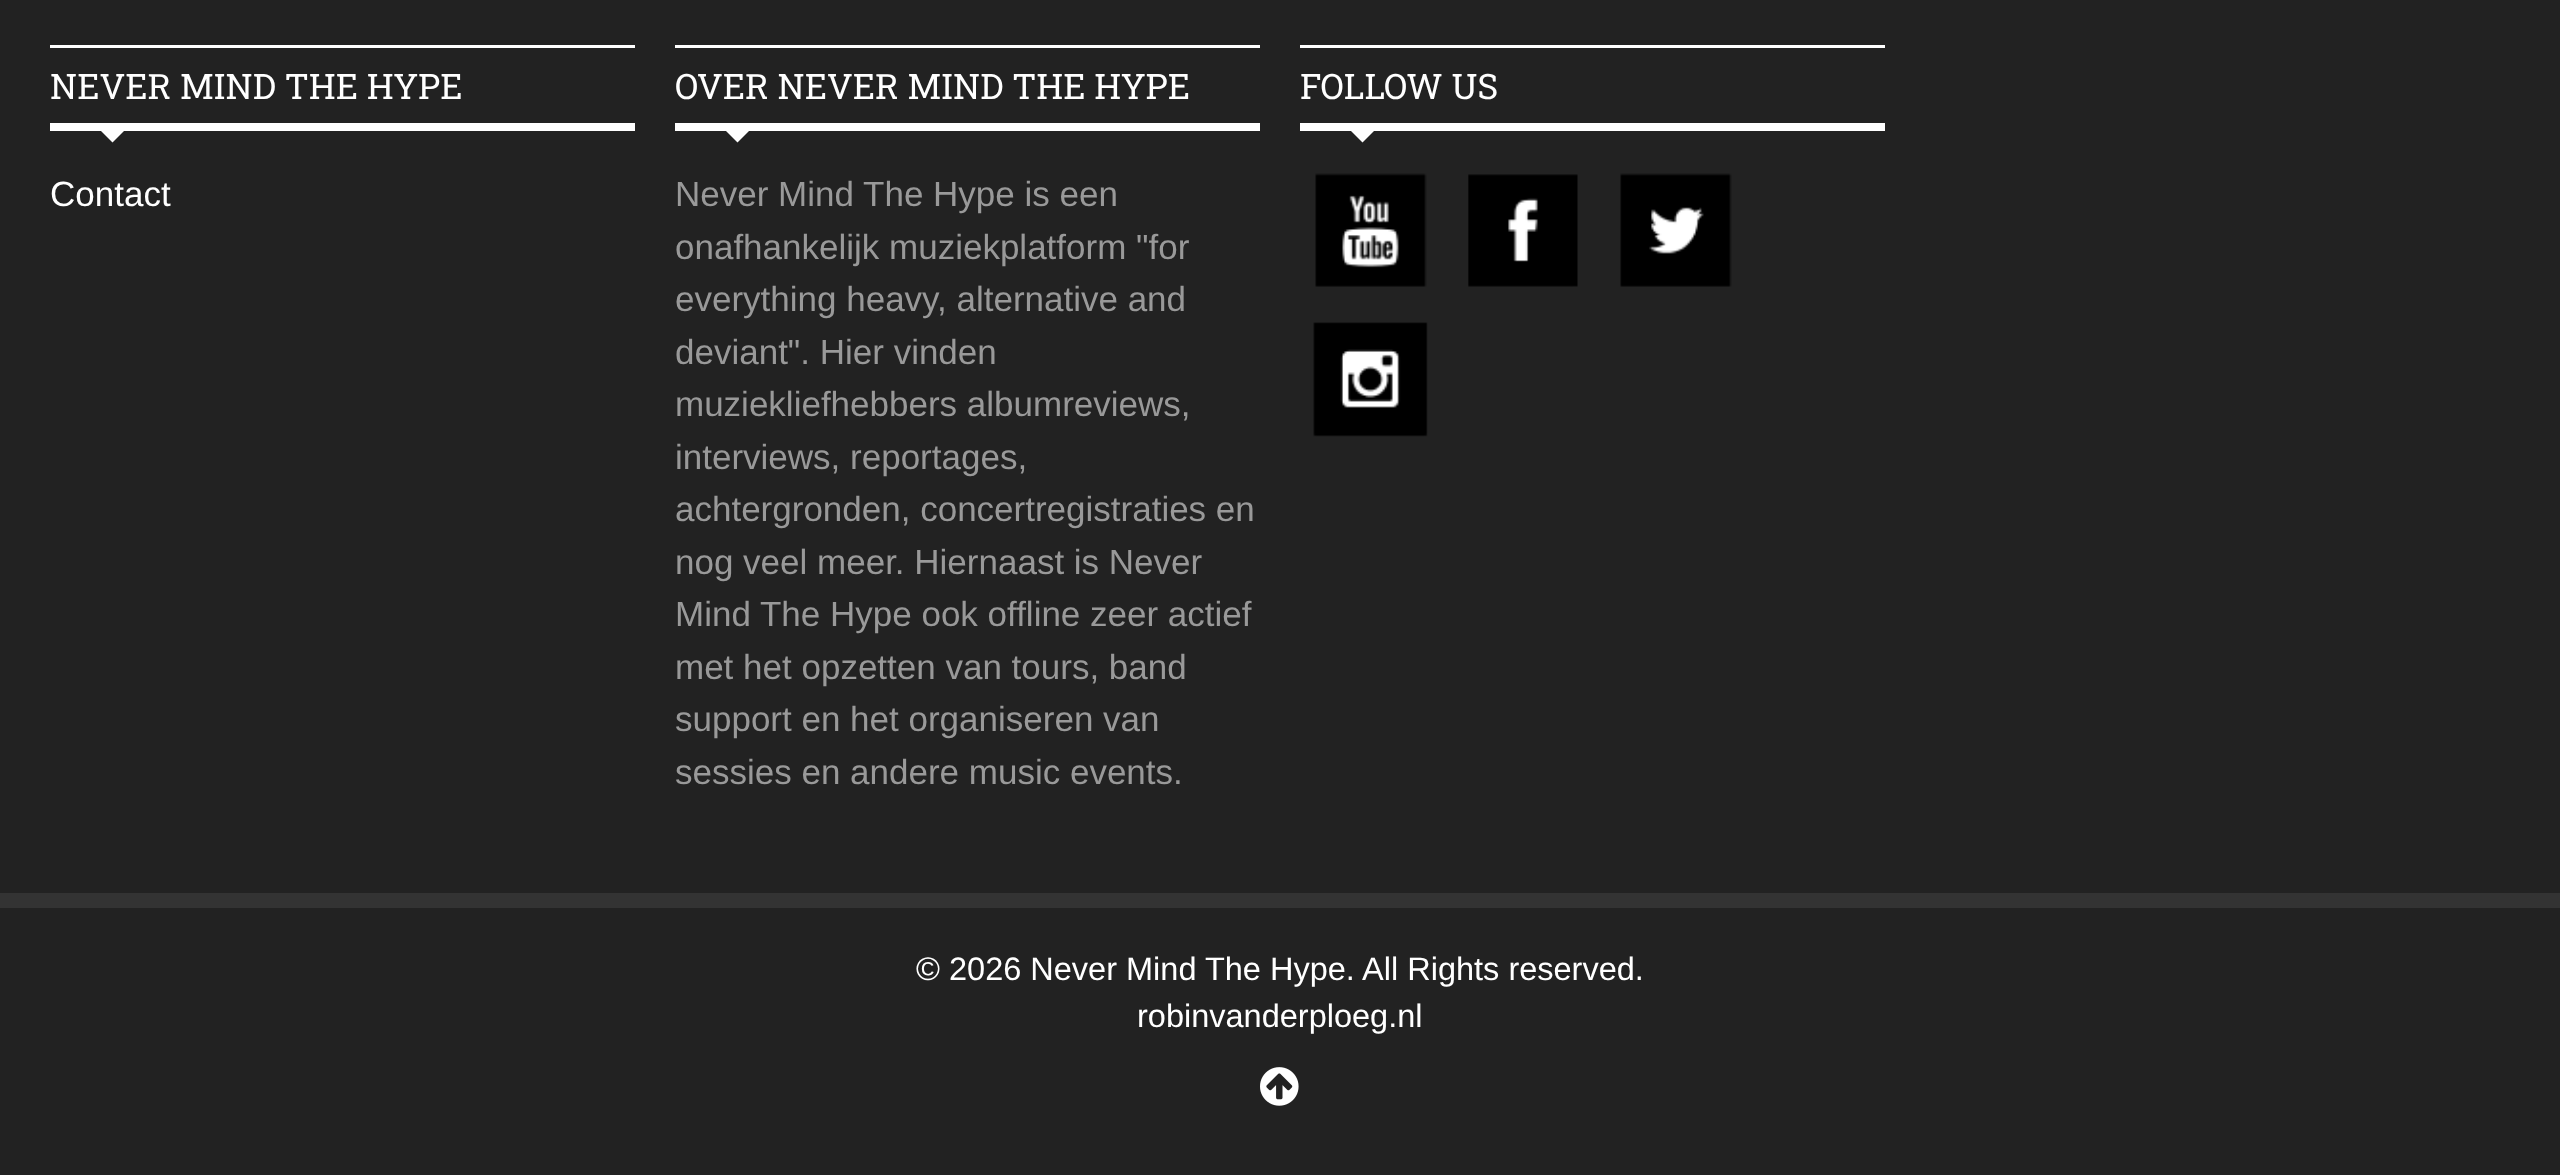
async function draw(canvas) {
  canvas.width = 2560;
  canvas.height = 1175;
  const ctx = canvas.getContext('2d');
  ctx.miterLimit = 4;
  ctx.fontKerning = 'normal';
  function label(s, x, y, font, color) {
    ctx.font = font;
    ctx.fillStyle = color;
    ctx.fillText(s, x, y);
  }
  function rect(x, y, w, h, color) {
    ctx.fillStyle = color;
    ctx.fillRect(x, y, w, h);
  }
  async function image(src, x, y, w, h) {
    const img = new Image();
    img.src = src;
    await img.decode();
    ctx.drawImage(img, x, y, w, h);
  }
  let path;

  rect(0, 0, 2560, 1175, '#222');
  rect(50, 45, 585, 3, '#fff');
  rect(50, 123, 585, 8, '#fff');
  label('NEVER MIND THE HYPE', 50, 99, '35px Roboto Slab', '#fff');
  path = new Path2D('M100 130H125L112.5 142.5Z');
  ctx.fill(path);
  label('Contact', 50, 206, '35px Liberation Sans', '#fff');
  rect(675, 45, 585, 3, '#fff');
  rect(675, 123, 585, 8, '#fff');
  label('OVER NEVER MIND THE HYPE', 675, 99, '35px Roboto Slab', '#fff');
  path = new Path2D('M725 130H750L737.5 142.5Z');
  ctx.fill(path);
  label('Never Mind The Hype is een', 675, 206, '35px Liberation Sans', '#999');
  label('onafhankelijk muziekplatform "for', 675, 259, '35px Liberation Sans', '#999');
  label('everything heavy, alternative and', 675, 311, '35px Liberation Sans', '#999');
  label('deviant". Hier vinden', 675, 364, '35px Liberation Sans', '#999');
  label('muziekliefhebbers albumreviews,', 675, 416, '35px Liberation Sans', '#999');
  label('interviews, reportages,', 675, 469, '35px Liberation Sans', '#999');
  label('achtergronden, concertregistraties en', 675, 521, '35px Liberation Sans', '#999');
  label('nog veel meer. Hiernaast is Never', 675, 574, '35px Liberation Sans', '#999');
  label('Mind The Hype ook offline zeer actief', 675, 626, '35px Liberation Sans', '#999');
  label('met het opzetten van tours, band', 675, 679, '35px Liberation Sans', '#999');
  label('support en het organiseren van', 675, 731, '35px Liberation Sans', '#999');
  label('sessies en andere music events.', 675, 784, '35px Liberation Sans', '#999');
  rect(1300, 45, 585, 3, '#fff');
  rect(1300, 123, 585, 8, '#fff');
  label('FOLLOW US', 1300, 99, '35px Roboto Slab', '#fff');
  path = new Path2D('M1350 130H1375L1362.5 142.5Z');
  ctx.fill(path);
  await image('assets/img1.png', 1315, 173, 112, 114);
  await image('assets/img2.png', 1468, 174, 110, 113);
  await image('assets/img3.png', 1620, 173, 112, 114);
  await image('assets/img4.png', 1313, 322, 115, 115);
  rect(0, 893, 2560, 15, '#333');
  label('© 2026 Never Mind The Hype. All Rights reserved.', 916, 980, '32.5px Liberation Sans', '#fff');
  label('robinvanderploeg.nl', 1137, 1027, '32.5px Liberation Sans', '#fff');
  await image('assets/img5.png', 1260, 1067, 39, 39);
}

draw(document.querySelector('canvas'));
